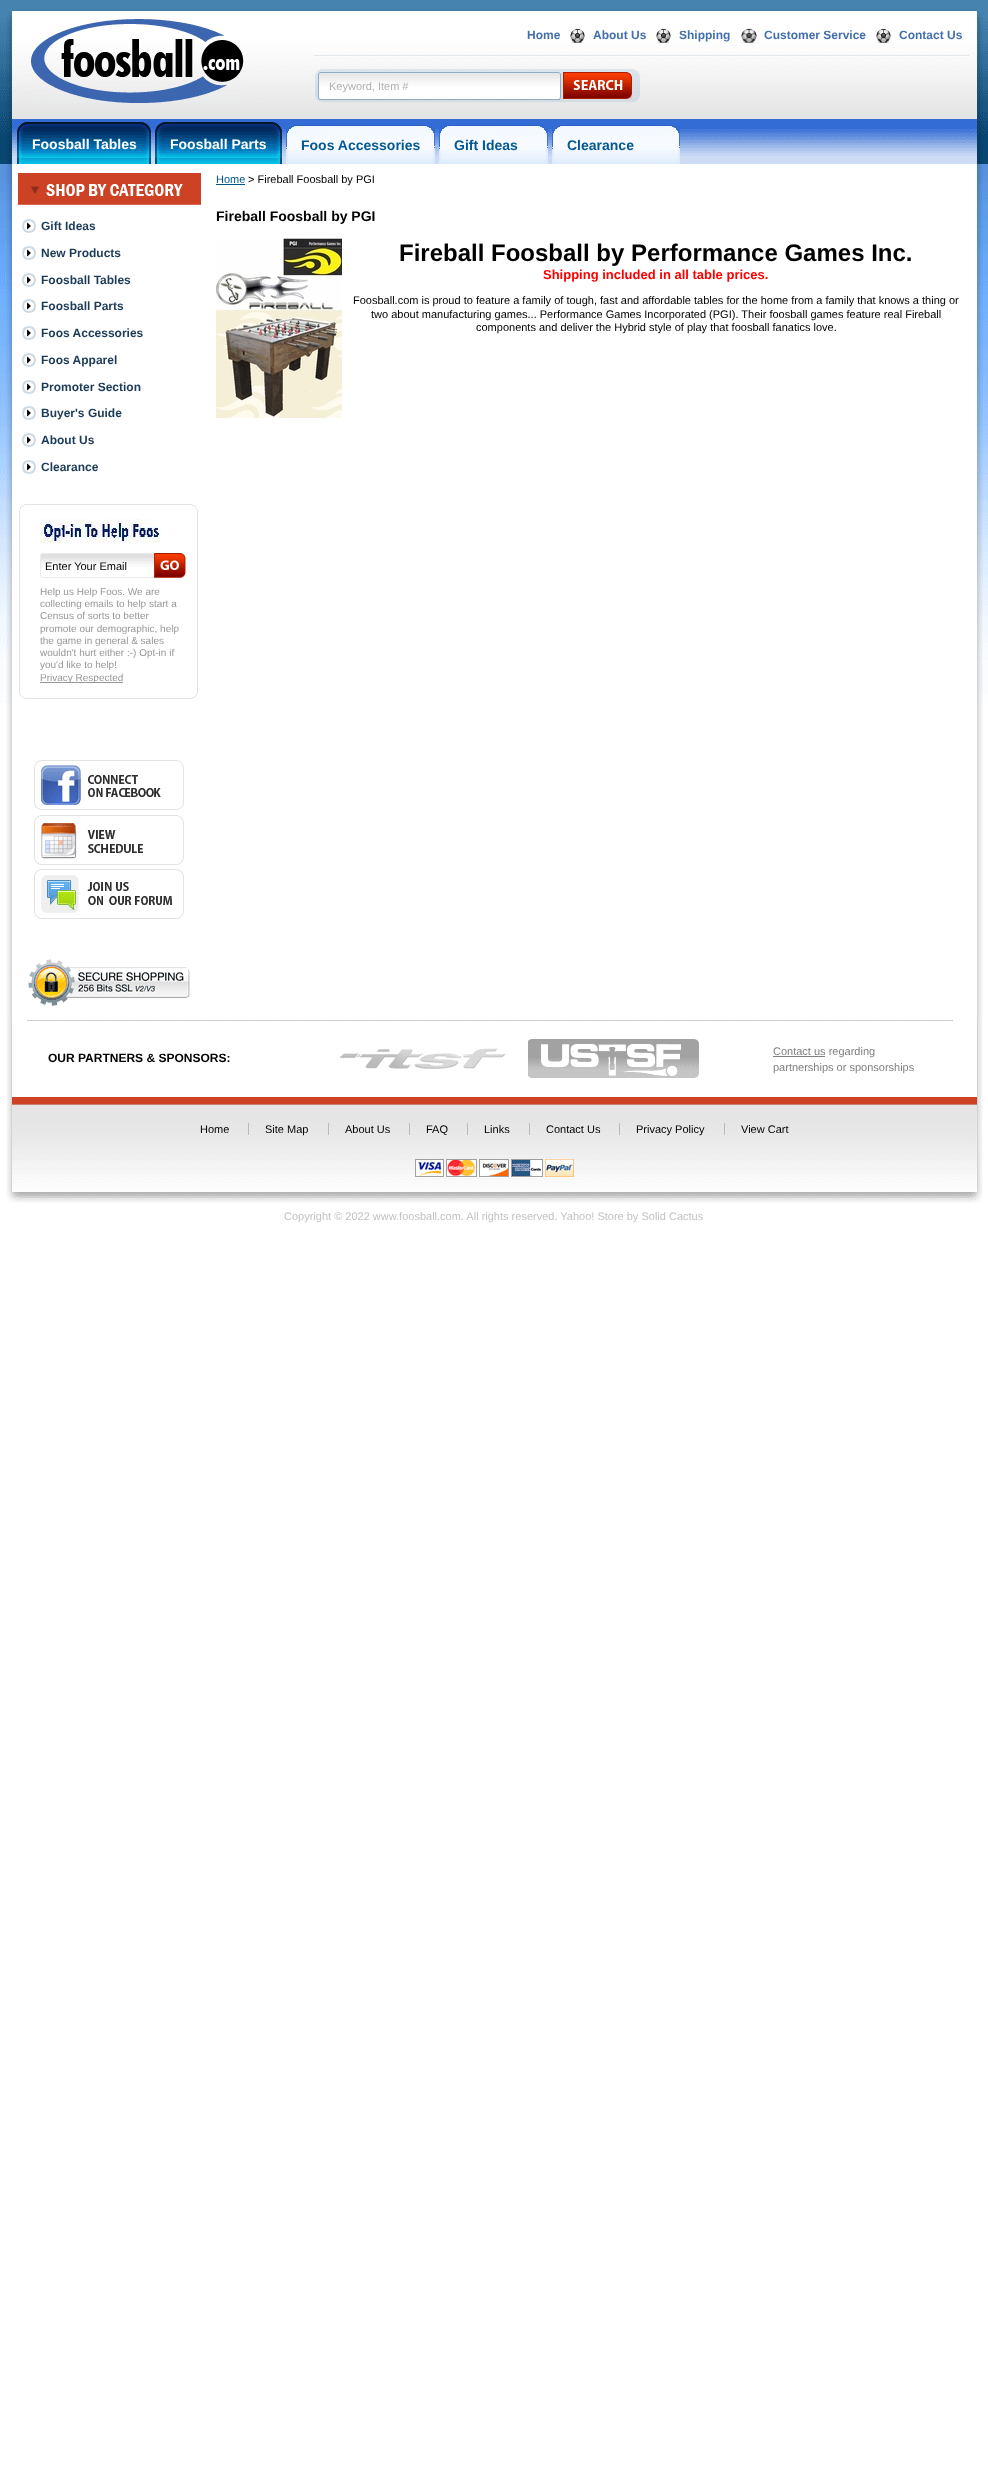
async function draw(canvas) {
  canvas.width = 988;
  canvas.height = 2491;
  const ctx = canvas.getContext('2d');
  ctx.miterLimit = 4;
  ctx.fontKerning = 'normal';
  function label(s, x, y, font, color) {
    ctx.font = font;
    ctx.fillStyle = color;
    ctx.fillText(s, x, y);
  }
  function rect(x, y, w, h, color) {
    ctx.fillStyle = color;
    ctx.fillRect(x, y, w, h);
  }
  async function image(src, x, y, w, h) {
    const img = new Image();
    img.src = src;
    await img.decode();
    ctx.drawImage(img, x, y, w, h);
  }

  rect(0, 0, 988, 2491, '#fff');
  await image('assets/img1.png', 0, 0, 988, 703);
  await image('assets/img2.png', 6, 9, 977, 155);
  await image('assets/img3.png', 31, 19, 213, 84);
  label('Home', 527, 39, 'bold 12px Liberation Sans', '#436fad');
  await image('assets/img4.png', 570, 28, 15, 15);
  label('About Us', 593, 39, 'bold 12px Liberation Sans', '#436fad');
  await image('assets/img4.png', 656, 28, 15, 15);
  label('Shipping', 679, 39, 'bold 12px Liberation Sans', '#436fad');
  await image('assets/img5.png', 741, 28, 16, 15);
  label('Customer Service', 764, 39, 'bold 12px Liberation Sans', '#436fad');
  await image('assets/img4.png', 876, 28, 15, 15);
  label('Contact Us', 899, 39, 'bold 12px Liberation Sans', '#436fad');
  label('Keyword, Item #', 329, 90, '11px Liberation Sans', '#b0b0b0');
  await image('assets/img6.png', 563, 72, 69, 27);
  await image('assets/img7.png', 17, 122, 15, 42);
  await image('assets/img8.png', 32, 122, 119, 42);
  label('Foosball Tables', 32, 149, 'bold 14px Liberation Sans', '#fff');
  await image('assets/img9.png', 155, 122, 16, 42);
  await image('assets/img10.png', 171, 122, 111, 42);
  label('Foosball Parts', 170, 149, 'bold 14px Liberation Sans', '#fff');
  await image('assets/img11.png', 286, 125, 149, 39);
  await image('assets/img12.png', 301, 125, 134, 38);
  label('Foos Accessories', 301, 150, 'bold 14px Liberation Sans', '#035894');
  await image('assets/img13.png', 439, 125, 109, 39);
  await image('assets/img14.png', 454, 125, 94, 38);
  label('Gift Ideas', 454, 150, 'bold 14px Liberation Sans', '#035894');
  await image('assets/img15.png', 552, 125, 128, 39);
  await image('assets/img16.png', 567, 125, 113, 38);
  label('Clearance', 567, 150, 'bold 14px Liberation Sans', '#035894');
  await image('assets/img17.png', 6, 164, 977, 856);
  await image('assets/img18.png', 18, 173, 183, 32);
  await image('assets/img19.png', 22, 219, 14, 14);
  label('Gift Ideas', 41, 230, 'bold 12px Liberation Sans', '#1c3b58');
  await image('assets/img19.png', 22, 246, 14, 14);
  label('New Products', 41, 257, 'bold 12px Liberation Sans', '#1c3b58');
  await image('assets/img19.png', 22, 273, 14, 14);
  label('Foosball Tables', 41, 284, 'bold 12px Liberation Sans', '#1c3b58');
  await image('assets/img19.png', 22, 299, 14, 14);
  label('Foosball Parts', 41, 310, 'bold 12px Liberation Sans', '#1c3b58');
  await image('assets/img19.png', 22, 326, 14, 14);
  label('Foos Accessories', 41, 337, 'bold 12px Liberation Sans', '#1c3b58');
  await image('assets/img19.png', 22, 353, 14, 14);
  label('Foos Apparel', 41, 364, 'bold 12px Liberation Sans', '#1c3b58');
  await image('assets/img19.png', 22, 380, 14, 14);
  label('Promoter Section', 41, 391, 'bold 12px Liberation Sans', '#1c3b58');
  await image('assets/img19.png', 22, 406, 14, 14);
  label('Buyer\'s Guide', 41, 417, 'bold 12px Liberation Sans', '#1c3b58');
  await image('assets/img19.png', 22, 433, 14, 14);
  label('About Us', 41, 444, 'bold 12px Liberation Sans', '#1c3b58');
  await image('assets/img19.png', 22, 460, 14, 14);
  label('Clearance', 41, 471, 'bold 12px Liberation Sans', '#1c3b58');
  await image('assets/img20.png', 19, 504, 179, 7);
  rect(197, 511, 1, 181, '#e3e3e3');
  rect(19, 511, 1, 181, '#e3e3e3');
  await image('assets/img21.png', 40, 519, 122, 24);
  await image('assets/img22.png', 40, 553, 114, 25);
  label('Enter Your Email', 45, 570, '11px Liberation Sans', '#000');
  await image('assets/img23.png', 154, 553, 32, 25);
  label('Help us Help Foos. We are', 40, 595, '10px Liberation Sans', '#979797');
  label('collecting emails to help start a', 40, 607, '10px Liberation Sans', '#979797');
  label('Census of sorts to better', 40, 619, '10px Liberation Sans', '#979797');
  label('promote our demographic, help', 40, 632, '10px Liberation Sans', '#979797');
  label('the game in general & sales', 40, 644, '10px Liberation Sans', '#979797');
  label('wouldn\'t hurt either :-) Opt-in if', 40, 656, '10px Liberation Sans', '#979797');
  label('you\'d like to help!', 40, 668, '10px Liberation Sans', '#979797');
  rect(40, 682, 83, 1, '#979797');
  label('Privacy Respected', 40, 681, '10px Liberation Sans', '#979797');
  await image('assets/img24.png', 19, 692, 179, 7);
  await image('assets/img25.png', 34, 760, 150, 50);
  await image('assets/img26.png', 34, 815, 150, 50);
  await image('assets/img27.png', 34, 869, 150, 50);
  await image('assets/img28.png', 28, 959, 162, 47);
  label('Home', 216, 183, '11px Liberation Sans', '#05558a');
  rect(216, 184, 29, 1, '#05558a');
  label('> Fireball Foosball by PGI', 248, 183, '11px Liberation Sans', '#000');
  label('Fireball Foosball by PGI', 216, 221, 'bold 14px Liberation Sans', '#000');
  await image('assets/img29.png', 216, 238, 126, 180);
  label('Fireball Foosball by Performance Games Inc.', 399, 261, 'bold 24px Liberation Sans', '#000');
  label('Shipping included in all table prices.', 543, 279, 'bold 13px Liberation Sans', '#f00');
  label('Foosball.com is proud to feature a family of tough, fast and affordable tables for the home from a family that knows a thing or', 353, 304, '11px Liberation Sans', '#000');
  label('two about manufacturing games... Performance Games Incorporated (PGI). Their foosball games feature real Fireball', 371, 318, '11px Liberation Sans', '#000');
  label('components and deliver the Hybrid style of play that foosball fanatics love.', 476, 331, '11px Liberation Sans', '#000');
  await image('assets/img30.png', 6, 1020, 977, 183);
  label('OUR PARTNERS & SPONSORS:', 48, 1062, 'bold 12px Liberation Sans', '#000');
  await image('assets/img31.png', 340, 1048, 165, 21);
  await image('assets/img32.png', 528, 1039, 171, 39);
  rect(773, 1056, 52, 1, '#7f7f7f');
  label('Contact us regarding', 773, 1055, '11px Liberation Sans', '#7f7f7f');
  label('partnerships or sponsorships', 773, 1071, '11px Liberation Sans', '#7f7f7f');
  label('Home', 200, 1133, '11px Liberation Sans', '#000');
  label('Site Map', 265, 1133, '11px Liberation Sans', '#000');
  rect(248, 1123, 1, 12, '#bababa');
  label('About Us', 345, 1133, '11px Liberation Sans', '#000');
  rect(328, 1123, 1, 12, '#bababa');
  label('FAQ', 426, 1133, '11px Liberation Sans', '#000');
  rect(409, 1123, 1, 12, '#bababa');
  label('Links', 484, 1133, '11px Liberation Sans', '#000');
  rect(467, 1123, 1, 12, '#bababa');
  label('Contact Us', 546, 1133, '11px Liberation Sans', '#000');
  rect(529, 1123, 1, 12, '#bababa');
  label('Privacy Policy', 636, 1133, '11px Liberation Sans', '#000');
  rect(619, 1123, 1, 12, '#bababa');
  label('View Cart', 741, 1133, '11px Liberation Sans', '#000');
  rect(724, 1123, 1, 12, '#bababa');
  await image('assets/img33.png', 415, 1159, 159, 18);
  label('Copyright © 2022 www.foosball.com. All rights reserved. Yahoo! Store by Solid Cactus', 284, 1220, '11px Liberation Sans', '#c2c2c2');
}

draw(document.querySelector('canvas'));
